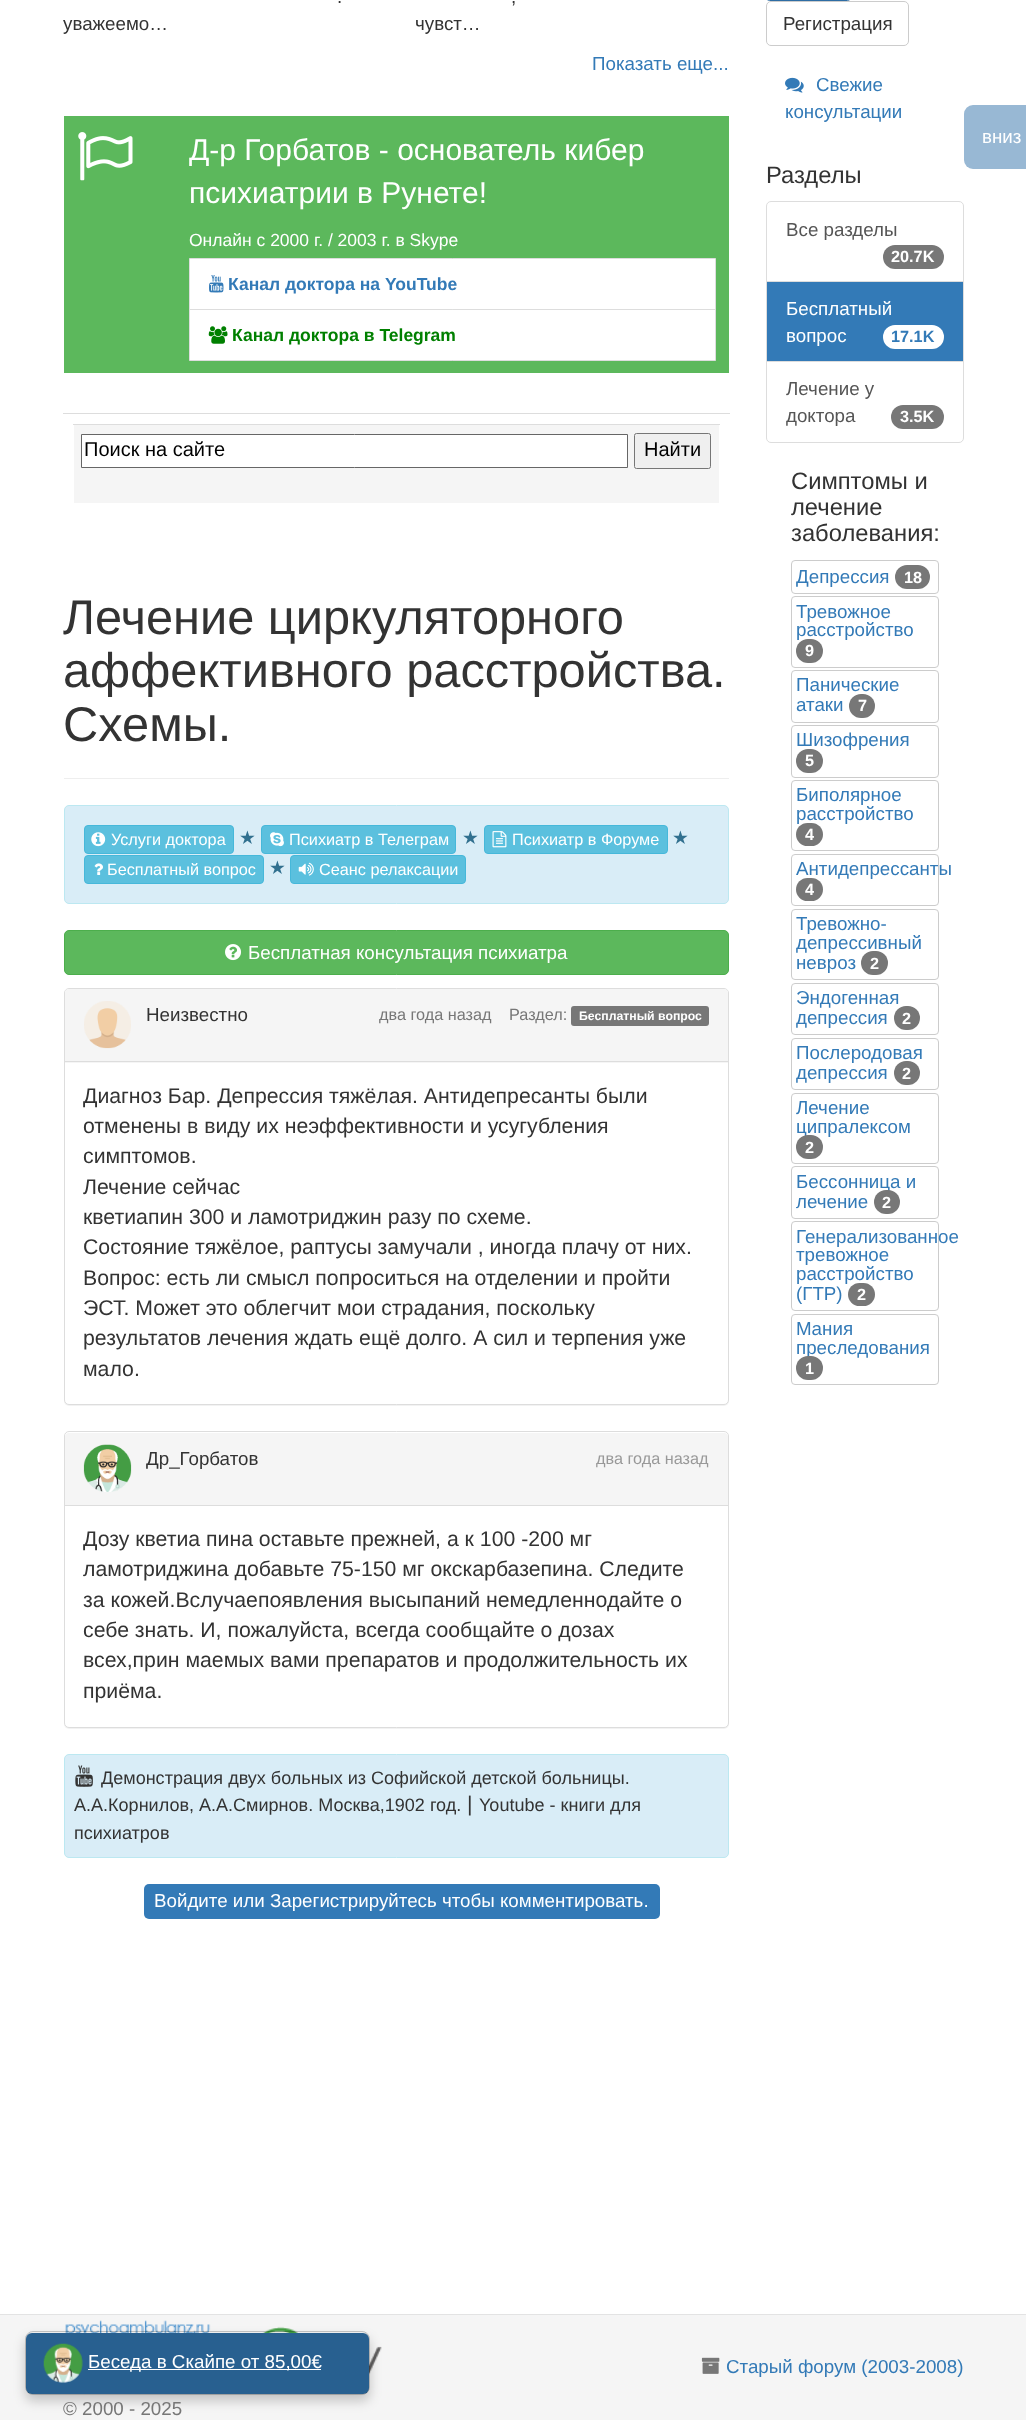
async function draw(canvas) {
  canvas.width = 1026;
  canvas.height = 2420;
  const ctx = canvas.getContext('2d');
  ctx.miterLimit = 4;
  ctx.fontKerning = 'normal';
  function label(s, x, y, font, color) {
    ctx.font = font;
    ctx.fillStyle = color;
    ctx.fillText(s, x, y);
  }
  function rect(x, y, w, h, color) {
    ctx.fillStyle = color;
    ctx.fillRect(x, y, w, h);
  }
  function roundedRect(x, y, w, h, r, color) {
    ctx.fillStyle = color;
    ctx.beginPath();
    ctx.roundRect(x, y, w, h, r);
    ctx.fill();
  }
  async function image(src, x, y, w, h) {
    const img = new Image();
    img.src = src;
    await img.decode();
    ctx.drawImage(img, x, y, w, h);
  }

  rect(0, 0, 1026, 2420, '#fff');
  label('.', 337, 3, '18.75px Liberation Sans', '#333');
  label('уважеемо…', 63, 30, '18.75px Liberation Sans', '#333');
  label(',', 511, 3, '18.75px Liberation Sans', '#333');
  label('чувст…', 415, 30, '18.75px Liberation Sans', '#333');
  label('Показать еще...', 592, 70, '18.75px Liberation Sans', '#337ab7');
  roundedRect(964, 105, 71, 64, 9, '#98b8d4');
  label('вниз', 982, 143, '18.75px Liberation Sans', '#fff');
  rect(64, 778, 665, 1, '#eee');
  label('Лечение циркуляторного', 63, 634, '48.75px Liberation Sans', '#333');
  label('аффективного расстройства.', 63, 687, '48.75px Liberation Sans', '#333');
  label('Схемы.', 63, 741, '48.75px Liberation Sans', '#333');
  ctx.fillStyle = '#d9edf7';
  ctx.beginPath();
  ctx.roundRect(64.5, 805.5, 664, 98, 4.5);
  ctx.fill();
  ctx.strokeStyle = '#bce8f1';
  ctx.stroke();
  ctx.fillStyle = '#5bc0de';
  ctx.beginPath();
  ctx.roundRect(84.5, 825.5, 149, 28, 3.5);
  ctx.fill();
  ctx.strokeStyle = '#46b8da';
  ctx.stroke();
  await image('assets/img1.png', 91, 832, 15, 15);
  label('Услуги доктора', 111, 845, '16.25px Liberation Sans', '#fff');
  label('★', 239, 844, '18.75px DejaVu Sans', '#31708f');
  ctx.fillStyle = '#5bc0de';
  ctx.beginPath();
  ctx.roundRect(261.5, 825.5, 194, 28, 3.5);
  ctx.fill();
  ctx.stroke();
  await image('assets/img2.png', 270, 832, 14, 15);
  label('Психиатр в Телеграм', 289, 845, '16.25px Liberation Sans', '#fff');
  label('★', 462, 844, '18.75px DejaVu Sans', '#31708f');
  ctx.fillStyle = '#5bc0de';
  ctx.beginPath();
  ctx.roundRect(484.5, 825.5, 183, 28, 3.5);
  ctx.fill();
  ctx.stroke();
  await image('assets/img3.png', 492, 831, 15, 17);
  label('Психиатр в Форуме', 512, 845, '16.25px Liberation Sans', '#fff');
  label('★', 672, 844, '18.75px DejaVu Sans', '#31708f');
  ctx.fillStyle = '#5bc0de';
  ctx.beginPath();
  ctx.roundRect(84.5, 855.5, 179, 28, 3.5);
  ctx.fill();
  ctx.stroke();
  await image('assets/img4.png', 94, 863, 9, 12);
  label('Бесплатный вопрос', 107, 875, '16.25px Liberation Sans', '#fff');
  label('★', 269, 874, '18.75px DejaVu Sans', '#31708f');
  ctx.fillStyle = '#5bc0de';
  ctx.beginPath();
  ctx.roundRect(290.5, 855.5, 175, 28, 3.5);
  ctx.fill();
  ctx.stroke();
  await image('assets/img5.png', 298, 862, 16, 14);
  label('Сеанс релаксации', 319, 875, '16.25px Liberation Sans', '#fff');
  ctx.fillStyle = '#5cb85c';
  ctx.beginPath();
  ctx.roundRect(64.5, 930.5, 664, 44, 4.5);
  ctx.fill();
  ctx.strokeStyle = '#4cae4c';
  ctx.stroke();
  await image('assets/img6.png', 225, 944, 16, 17);
  label('Бесплатная консультация психиатра', 248, 959, '18.75px Liberation Sans', '#fff');
  ctx.fillStyle = '#0000000d';
  ctx.filter = 'blur(0.5px)';
  ctx.beginPath();
  ctx.roundRect(64, 989, 665, 417, 5);
  ctx.fill();
  ctx.filter = 'none';
  ctx.fillStyle = '#fff';
  ctx.beginPath();
  ctx.roundRect(64.5, 988.5, 664, 416, 4.5);
  ctx.fill();
  ctx.strokeStyle = '#ddd';
  ctx.stroke();
  ctx.fillStyle = '#f5f5f5';
  ctx.beginPath();
  ctx.roundRect(65, 989, 663, 74, [4, 4, 0, 0]);
  ctx.fill();
  rect(65, 1061, 663, 1, '#ddd');
  await image('assets/img7.png', 84, 1001, 47, 48);
  label('Неизвестно', 146, 1021, '18.75px Liberation Sans', '#333');
  label('два года назад', 379, 1020, '16.25px Liberation Sans', '#777');
  label('Раздел:', 509, 1020, '16.25px Liberation Sans', '#777');
  roundedRect(571, 1006, 138, 20, 3, '#777');
  label('Бесплатный вопрос', 579, 1020, 'bold 12.25px Liberation Sans', '#fff');
  label('Диагноз Бар. Депрессия тяжёлая. Антидепресанты были', 83, 1103, '21.25px Liberation Sans', '#333');
  label('отменены в виду их неэффективности и усугубления', 83, 1133, '21.25px Liberation Sans', '#333');
  label('симптомов.', 83, 1163, '21.25px Liberation Sans', '#333');
  label('Лечение сейчас', 83, 1194, '21.25px Liberation Sans', '#333');
  label('кветиапин 300 и ламотриджин разу по схеме.', 83, 1224, '21.25px Liberation Sans', '#333');
  label('Состояние тяжёлое, раптусы замучали , иногда плачу от них.', 83, 1254, '21.25px Liberation Sans', '#333');
  label('Вопрос: есть ли смысл попроситься на отделении и пройти', 83, 1285, '21.25px Liberation Sans', '#333');
  label('ЭСТ. Может это облегчит мои страдания, поскольку', 83, 1315, '21.25px Liberation Sans', '#333');
  label('результатов лечения ждать ещё долго. А сил и терпения уже', 83, 1345, '21.25px Liberation Sans', '#333');
  label('мало.', 83, 1376, '21.25px Liberation Sans', '#333');
  rect(64, 116, 665, 257, '#5cb85c');
  await image('assets/img8.png', 78, 132, 55, 49);
  label('Д-р Горбатов - основатель кибер', 189, 160, '30px Liberation Sans', '#fff');
  label('психиатрии в Рунете!', 189, 203, '30px Liberation Sans', '#fff');
  label('Онлайн с 2000 г. / 2003 г. в Skype', 189, 246, '17.5px Liberation Sans', '#fff');
  ctx.beginPath();
  ctx.rect(189.5, 258.5, 526, 51);
  ctx.fill();
  ctx.stroke();
  await image('assets/img9.png', 209, 275, 15, 18);
  label('Канал доктора на YouTube', 228, 290, 'bold 17.5px Liberation Sans', '#337ab7');
  ctx.fillStyle = '#fff';
  ctx.beginPath();
  ctx.rect(189.5, 309.5, 526, 51);
  ctx.fill();
  ctx.stroke();
  await image('assets/img10.png', 208, 326, 20, 18);
  label('Канал доктора в Telegram', 232, 341, 'bold 17.5px Liberation Sans', '#008000');
  rect(63, 413, 667, 1, '#ddd');
  rect(74, 425, 645, 78, '#f5f5f5');
  rect(73, 424, 647, 1, '#ddd');
  ctx.fillStyle = '#fff';
  ctx.beginPath();
  ctx.rect(81.5, 434.5, 546, 33);
  ctx.fill();
  ctx.strokeStyle = '#666';
  ctx.stroke();
  label('Поиск на сайте', 84, 456, '20px Liberation Sans', '#000');
  ctx.fillStyle = '#efefef';
  ctx.beginPath();
  ctx.roundRect(634.5, 433.5, 76, 35, 2);
  ctx.fill();
  ctx.strokeStyle = '#767676';
  ctx.stroke();
  label('Найти', 644, 456, '20px Liberation Sans', '#000');
  ctx.fillStyle = '#0000000d';
  ctx.filter = 'blur(0.5px)';
  ctx.beginPath();
  ctx.roundRect(64, 1433, 665, 296, 5);
  ctx.fill();
  ctx.filter = 'none';
  ctx.fillStyle = '#fff';
  ctx.beginPath();
  ctx.roundRect(64.5, 1431.5, 664, 296, 4.5);
  ctx.fill();
  ctx.strokeStyle = '#ddd';
  ctx.stroke();
  ctx.fillStyle = '#f5f5f5';
  ctx.beginPath();
  ctx.roundRect(65, 1433, 663, 73, [4, 4, 0, 0]);
  ctx.fill();
  rect(65, 1505, 663, 1, '#ddd');
  await image('assets/img11.png', 83, 1444, 49, 48);
  label('Др_Горбатов', 146, 1465, '18.75px Liberation Sans', '#333');
  label('два года назад', 596, 1464, '16.25px Liberation Sans', '#999');
  label('Дозу кветиа пина оставьте прежней, а к 100 -200 мг', 83, 1546, '21.25px Liberation Sans', '#333');
  label('ламотриджина добавьте 75-150 мг окскарбазепина. Следите', 83, 1576, '21.25px Liberation Sans', '#333');
  label('за кожей.Вслучаепоявления высыпаний немедленнодайте о', 83, 1607, '21.25px Liberation Sans', '#333');
  label('себе знать. И, пожалуйста, всегда сообщайте о дозах', 83, 1637, '21.25px Liberation Sans', '#333');
  label('всех,прин маемых вами препаратов и продолжительность их', 83, 1667, '21.25px Liberation Sans', '#333');
  label('приёма.', 83, 1698, '21.25px Liberation Sans', '#333');
  ctx.fillStyle = '#d9edf7';
  ctx.beginPath();
  ctx.roundRect(64.5, 1754.5, 664, 103, 4.5);
  ctx.fill();
  ctx.strokeStyle = '#bce8f1';
  ctx.stroke();
  await image('assets/img12.png', 75, 1765, 18, 22);
  label('Демонстрация двух больных из Софийской детской больницы.', 101, 1784, '18.05px Liberation Sans', '#333');
  label('А.А.Корнилов, А.А.Смирнов. Москва,1902 год.', 74, 1811, '18.05px Liberation Sans', '#333');
  label('|', 467, 1811, '21.25px Liberation Sans', '#333');
  label('Youtube - книги для', 479, 1811, '18.05px Liberation Sans', '#333');
  label('психиатров', 74, 1839, '18.05px Liberation Sans', '#333');
  roundedRect(144, 1884, 516, 35, 5, '#337ab7');
  label('Войдите или Зарегистрируйтесь чтобы комментировать.', 154, 1907, '18.75px Liberation Sans', '#fff');
  ctx.beginPath();
  ctx.roundRect(766.5, -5.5, 84, 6, 4.5);
  ctx.strokeStyle = '#2e6da4';
  ctx.stroke();
  ctx.beginPath();
  ctx.roundRect(766.5, 1.5, 142, 44, 4.5);
  ctx.strokeStyle = '#ccc';
  ctx.stroke();
  label('Регистрация', 783, 30, '18.75px Liberation Sans', '#333');
  await image('assets/img13.png', 785, 77, 19, 16);
  label('Свежие', 816, 91, '18.75px Liberation Sans', '#337ab7');
  label('консультации', 785, 118, '18.75px Liberation Sans', '#337ab7');
  label('Разделы', 766, 183, '23.75px Liberation Sans', '#333');
  ctx.beginPath();
  ctx.roundRect(766.5, 201.5, 197, 81, [4.5, 4.5, 0, 0]);
  ctx.strokeStyle = '#ddd';
  ctx.stroke();
  label('Все разделы', 786, 236, '18.75px Liberation Sans', '#555');
  roundedRect(883, 245, 61, 24, 12, '#777');
  label('20.7K', 891, 262, 'bold 16.25px Liberation Sans', '#fff');
  rect(767, 282, 196, 79, '#337ab7');
  ctx.strokeRect(766.5, 281.5, 197, 81);
  label('Бесплатный', 786, 315, '18.75px Liberation Sans', '#fff');
  label('вопрос', 786, 342, '18.75px Liberation Sans', '#fff');
  roundedRect(883, 325, 61, 24, 12, '#fff');
  label('17.1K', 891, 342, 'bold 16.25px Liberation Sans', '#337ab7');
  ctx.fillStyle = '#fff';
  ctx.beginPath();
  ctx.roundRect(766.5, 361.5, 197, 81, [0, 0, 4.5, 4.5]);
  ctx.fill();
  ctx.stroke();
  label('Лечение у', 786, 395, '18.75px Liberation Sans', '#555');
  label('доктора', 786, 422, '18.75px Liberation Sans', '#555');
  roundedRect(891, 405, 53, 24, 12, '#777');
  label('3.5K', 900, 422, 'bold 16.25px Liberation Sans', '#fff');
  label('Симптомы и', 791, 489, '23.75px Liberation Sans', '#333');
  label('лечение', 791, 515, '23.75px Liberation Sans', '#333');
  label('заболевания:', 791, 541, '23.75px Liberation Sans', '#333');
  ctx.beginPath();
  ctx.roundRect(791.5, 560.5, 147, 33, 3.5);
  ctx.strokeStyle = '#ccc';
  ctx.stroke();
  label('Депрессия', 796, 583, '18.75px Liberation Sans', '#337ab7');
  roundedRect(895, 565, 35, 24, 12, '#777');
  label('18', 904, 583, 'bold 16.25px Liberation Sans', '#fff');
  ctx.beginPath();
  ctx.roundRect(791.5, 596.5, 147, 71, 3.5);
  ctx.stroke();
  label('Тревожное', 796, 618, '18.75px Liberation Sans', '#337ab7');
  label('расстройство', 796, 636, '18.75px Liberation Sans', '#337ab7');
  roundedRect(796, 639, 27, 24, 12, '#777');
  label('9', 805, 656, 'bold 16.25px Liberation Sans', '#fff');
  ctx.beginPath();
  ctx.roundRect(791.5, 670.5, 147, 52, 3.5);
  ctx.stroke();
  label('Панические', 796, 691, '18.75px Liberation Sans', '#337ab7');
  label('атаки', 796, 711, '18.75px Liberation Sans', '#337ab7');
  roundedRect(849, 694, 26, 24, 12, '#777');
  label('7', 858, 711, 'bold 16.25px Liberation Sans', '#fff');
  ctx.beginPath();
  ctx.roundRect(791.5, 725.5, 147, 52, 3.5);
  ctx.stroke();
  label('Шизофрения', 796, 746, '18.75px Liberation Sans', '#337ab7');
  roundedRect(796, 749, 27, 24, 12, '#777');
  label('5', 805, 766, 'bold 16.25px Liberation Sans', '#fff');
  ctx.beginPath();
  ctx.roundRect(791.5, 780.5, 147, 70, 3.5);
  ctx.stroke();
  label('Биполярное', 796, 801, '18.75px Liberation Sans', '#337ab7');
  label('расстройство', 796, 820, '18.75px Liberation Sans', '#337ab7');
  roundedRect(796, 823, 27, 23, 11.5, '#777');
  label('4', 805, 840, 'bold 16.25px Liberation Sans', '#fff');
  ctx.beginPath();
  ctx.roundRect(791.5, 854.5, 147, 51, 3.5);
  ctx.stroke();
  label('Антидепрессанты', 796, 875, '18.75px Liberation Sans', '#337ab7');
  roundedRect(796, 878, 27, 23, 11.5, '#777');
  label('4', 805, 895, 'bold 16.25px Liberation Sans', '#fff');
  ctx.beginPath();
  ctx.roundRect(791.5, 909.5, 147, 70, 3.5);
  ctx.stroke();
  label('Тревожно-', 796, 930, '18.75px Liberation Sans', '#337ab7');
  label('депрессивный', 796, 949, '18.75px Liberation Sans', '#337ab7');
  label('невроз', 796, 969, '18.75px Liberation Sans', '#337ab7');
  roundedRect(861, 951, 27, 24, 12, '#777');
  label('2', 870, 969, 'bold 16.25px Liberation Sans', '#fff');
  ctx.beginPath();
  ctx.roundRect(791.5, 983.5, 147, 51, 3.5);
  ctx.stroke();
  label('Эндогенная', 796, 1004, '18.75px Liberation Sans', '#337ab7');
  label('депрессия', 796, 1024, '18.75px Liberation Sans', '#337ab7');
  roundedRect(894, 1006, 26, 24, 12, '#777');
  label('2', 902, 1024, 'bold 16.25px Liberation Sans', '#fff');
  ctx.beginPath();
  ctx.roundRect(791.5, 1038.5, 147, 51, 3.5);
  ctx.stroke();
  label('Послеродовая', 796, 1059, '18.75px Liberation Sans', '#337ab7');
  label('депрессия', 796, 1079, '18.75px Liberation Sans', '#337ab7');
  roundedRect(894, 1061, 26, 24, 12, '#777');
  label('2', 902, 1079, 'bold 16.25px Liberation Sans', '#fff');
  ctx.beginPath();
  ctx.roundRect(791.5, 1093.5, 147, 70, 3.5);
  ctx.stroke();
  label('Лечение', 796, 1114, '18.75px Liberation Sans', '#337ab7');
  label('ципралексом', 796, 1133, '18.75px Liberation Sans', '#337ab7');
  roundedRect(796, 1135, 27, 24, 12, '#777');
  label('2', 805, 1153, 'bold 16.25px Liberation Sans', '#fff');
  ctx.beginPath();
  ctx.roundRect(791.5, 1166.5, 147, 52, 3.5);
  ctx.stroke();
  label('Бессонница и', 796, 1188, '18.75px Liberation Sans', '#337ab7');
  label('лечение', 796, 1208, '18.75px Liberation Sans', '#337ab7');
  roundedRect(874, 1190, 26, 24, 12, '#777');
  label('2', 882, 1208, 'bold 16.25px Liberation Sans', '#fff');
  ctx.beginPath();
  ctx.roundRect(791.5, 1221.5, 147, 89, 3.5);
  ctx.stroke();
  label('Генерализованное', 796, 1243, '18.75px Liberation Sans', '#337ab7');
  label('тревожное', 796, 1261, '18.75px Liberation Sans', '#337ab7');
  label('расстройство', 796, 1280, '18.75px Liberation Sans', '#337ab7');
  label('(ГТР)', 796, 1300, '18.75px Liberation Sans', '#337ab7');
  roundedRect(848, 1283, 27, 23, 11.5, '#777');
  label('2', 857, 1300, 'bold 16.25px Liberation Sans', '#fff');
  ctx.beginPath();
  ctx.roundRect(791.5, 1314.5, 147, 70, 3.5);
  ctx.stroke();
  label('Mания', 796, 1335, '18.75px Liberation Sans', '#337ab7');
  label('преследования', 796, 1354, '18.75px Liberation Sans', '#337ab7');
  roundedRect(796, 1356, 27, 24, 12, '#777');
  label('1', 805, 1374, 'bold 16.25px Liberation Sans', '#fff');
  rect(0, 2315, 1026, 105, '#f5f5f5');
  await image('assets/img15.png', 65, 2320, 317, 55);
  ctx.fillStyle = '#00000033';
  ctx.filter = 'blur(6px)';
  ctx.beginPath();
  ctx.roundRect(25, 2338, 345, 63, 8);
  ctx.fill();
  ctx.filter = 'none';
  roundedRect(26, 2333, 343, 61, 6, '#286090');
  ctx.beginPath();
  ctx.roundRect(25.5, 2331.5, 344, 63, 7.5);
  ctx.strokeStyle = '#00000033';
  ctx.stroke();
  await image('assets/img14.png', 43, 2343, 40, 40);
  rect(88, 2369, 233, 1, '#fff');
  label('Беседа в Скайпе от 85,00€', 88, 2368, '18.75px Liberation Sans', '#fff');
  rect(0, 2314, 1026, 1, '#e3e3e3');
  await image('assets/img16.png', 701, 2357, 19, 17);
  label('Старый форум (2003-2008)', 726, 2373, '18.75px Liberation Sans', '#337ab7');
  label('© 2000 - 2025', 63, 2415, '18.75px Liberation Sans', '#777');
}

draw(document.querySelector('canvas'));
